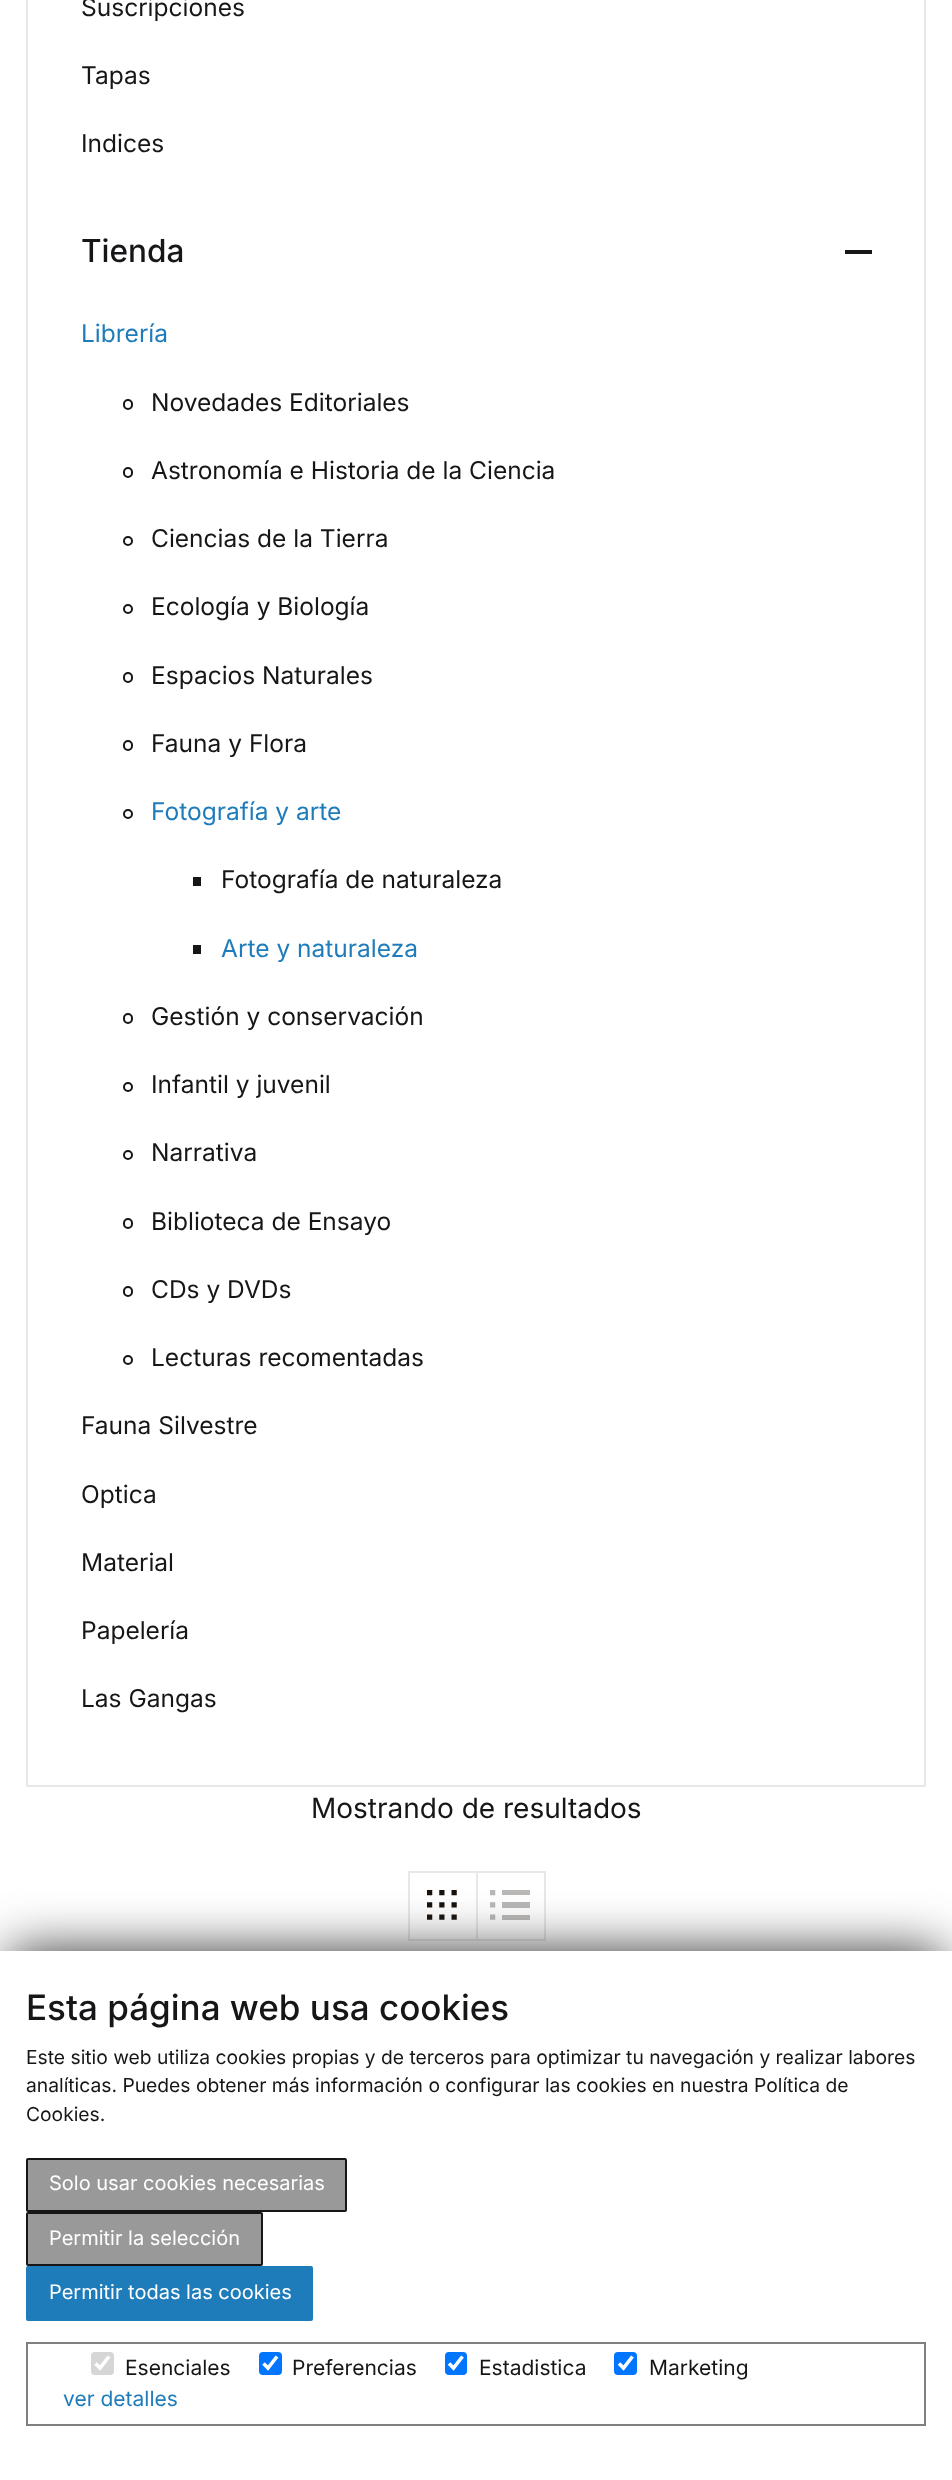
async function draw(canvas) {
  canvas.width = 952;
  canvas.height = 2480;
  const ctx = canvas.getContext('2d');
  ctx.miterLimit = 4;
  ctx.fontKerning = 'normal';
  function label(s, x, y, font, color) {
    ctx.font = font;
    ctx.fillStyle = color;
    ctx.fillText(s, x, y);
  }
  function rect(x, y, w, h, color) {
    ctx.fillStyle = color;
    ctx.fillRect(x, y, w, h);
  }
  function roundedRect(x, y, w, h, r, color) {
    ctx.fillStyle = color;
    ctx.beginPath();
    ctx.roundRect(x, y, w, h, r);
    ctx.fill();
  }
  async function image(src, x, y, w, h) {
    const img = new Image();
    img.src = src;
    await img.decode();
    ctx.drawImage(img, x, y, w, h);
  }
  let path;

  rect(0, 0, 952, 2480, '#fff');
  ctx.strokeStyle = '#eae8e4';
  ctx.lineWidth = 2;
  ctx.strokeRect(27, -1, 898, 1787);
  label('Suscripciones', 81, 16, '24.5px Inter', '#161619');
  label('Tapas', 81, 84, '24.5px Inter', '#161619');
  label('Indices', 81, 152, '24.5px Inter', '#161619');
  label('Tienda', 81, 262, '500 31.5px Inter', '#161619');
  rect(845, 250, 27, 4, '#161619');
  label('Librería', 81, 342, '24.5px Inter', '#1e7cba');
  ctx.beginPath();
  ctx.roundRect(124, 400, 8, 9, 4);
  ctx.strokeStyle = '#161619';
  ctx.stroke();
  label('Novedades Editoriales', 151, 411, '24.5px Inter', '#161619');
  ctx.beginPath();
  ctx.roundRect(124, 468, 8, 9, 4);
  ctx.stroke();
  label('Astronomía e Historia de la Ciencia', 151, 479, '24.5px Inter', '#161619');
  ctx.beginPath();
  ctx.arc(128, 541, 4, 0, 2 * Math.PI);
  ctx.stroke();
  label('Ciencias de la Tierra', 151, 547, '24.5px Inter', '#161619');
  ctx.beginPath();
  ctx.arc(128, 609, 4, 0, 2 * Math.PI);
  ctx.stroke();
  label('Ecología y Biología', 151, 615, '24.5px Inter', '#161619');
  ctx.beginPath();
  ctx.roundRect(124, 673, 8, 9, 4);
  ctx.stroke();
  label('Espacios Naturales', 151, 684, '24.5px Inter', '#161619');
  ctx.beginPath();
  ctx.roundRect(124, 741, 8, 9, 4);
  ctx.stroke();
  label('Fauna y Flora', 151, 752, '24.5px Inter', '#161619');
  ctx.beginPath();
  ctx.arc(128, 814, 4, 0, 2 * Math.PI);
  ctx.stroke();
  label('Fotografía y arte', 151, 820, '24.5px Inter', '#1e7cba');
  rect(193, 877, 8, 9, '#161619');
  label('Fotografía de naturaleza', 221, 888, '24.5px Inter', '#161619');
  rect(193, 945, 8, 9, '#161619');
  label('Arte y naturaleza', 221, 957, '24.5px Inter', '#1e7cba');
  ctx.beginPath();
  ctx.roundRect(124, 1014, 8, 9, 4);
  ctx.stroke();
  label('Gestión y conservación', 151, 1025, '24.5px Inter', '#161619');
  ctx.beginPath();
  ctx.arc(128, 1087, 4, 0, 2 * Math.PI);
  ctx.stroke();
  label('Infantil y juvenil', 151, 1093, '24.5px Inter', '#161619');
  ctx.beginPath();
  ctx.arc(128, 1155, 4, 0, 2 * Math.PI);
  ctx.stroke();
  label('Narrativa', 151, 1161, '24.5px Inter', '#161619');
  ctx.beginPath();
  ctx.roundRect(124, 1219, 8, 9, 4);
  ctx.stroke();
  label('Biblioteca de Ensayo', 151, 1230, '24.5px Inter', '#161619');
  ctx.beginPath();
  ctx.roundRect(124, 1287, 8, 9, 4);
  ctx.stroke();
  label('CDs y DVDs', 151, 1298, '24.5px Inter', '#161619');
  ctx.beginPath();
  ctx.arc(128, 1360, 4, 0, 2 * Math.PI);
  ctx.stroke();
  label('Lecturas recomentadas', 151, 1366, '24.5px Inter', '#161619');
  label('Fauna Silvestre', 81, 1434, '24.5px Inter', '#161619');
  label('Optica', 81, 1503, '24.5px Inter', '#161619');
  label('Material', 81, 1571, '24.5px Inter', '#161619');
  label('Papelería', 81, 1639, '24.5px Inter', '#161619');
  label('Las Gangas', 81, 1707, '24.5px Inter', '#161619');
  label('Mostrando de resultados', 311, 1818, '28px Inter', '#161619');
  ctx.strokeStyle = '#eae8e4';
  ctx.strokeRect(409, 1872, 68, 68);
  await image('assets/img1.png', 427, 1890, 30, 30);
  ctx.strokeRect(477, 1872, 68, 68);
  await image('assets/img2.png', 490, 1890, 40, 30);
  ctx.fillStyle = '#333';
  ctx.filter = 'blur(26px)';
  ctx.beginPath();
  ctx.rect(9, 1951, 934, 513);
  ctx.fill();
  ctx.filter = 'none';
  rect(0, 1951, 952, 529, '#fff');
  label('Esta página web usa cookies', 26, 2020, '500 35px Inter', '#161619');
  label('Este sitio web utiliza cookies propias y de terceros para optimizar tu navegación y realizar labores', 26, 2064, '19.25px Inter', '#161619');
  label('analíticas. Puedes obtener más información o configurar las cookies en nuestra Política de', 26, 2092, '19.25px Inter', '#161619');
  label('Cookies.', 26, 2121, '19.25px Inter', '#161619');
  ctx.fillStyle = '#999';
  ctx.beginPath();
  ctx.roundRect(27, 2159, 319, 52, 1);
  ctx.fill();
  ctx.strokeStyle = '#161619';
  ctx.stroke();
  label('Solo usar cookies necesarias', 49, 2190, '20px Inter', '#fff');
  ctx.fillStyle = '#999';
  ctx.beginPath();
  ctx.roundRect(27, 2213, 235, 52, 1);
  ctx.fill();
  ctx.stroke();
  label('Permitir la selección', 49, 2245, '20px Inter', '#fff');
  ctx.fillStyle = '#1e7cba';
  ctx.beginPath();
  ctx.roundRect(27, 2267, 285, 53, 1);
  ctx.fill();
  ctx.strokeStyle = '#1e7cba';
  ctx.stroke();
  label('Permitir todas las cookies', 49, 2299, '20px Inter', '#fff');
  ctx.strokeStyle = '#808080';
  ctx.strokeRect(27, 2343, 898, 82);
  roundedRect(91, 2352, 23, 23, 4, '#d6d6d6');
  path = new Path2D('M95.5 2363.5L100 2368L109 2356.5');
  ctx.strokeStyle = '#fff';
  ctx.lineWidth = 3.6;
  ctx.stroke(path);
  label('Esenciales', 125, 2375, '21px Inter', '#161619');
  roundedRect(259, 2352, 23, 23, 4, '#0075ff');
  path = new Path2D('M263.5 2363.5L268 2368L277 2356.5');
  ctx.stroke(path);
  label('Preferencias', 292, 2375, '21px Inter', '#161619');
  roundedRect(445, 2352, 22, 23, 4, '#0075ff');
  path = new Path2D('M449 2363.5L453.5 2368L462.5 2356.5');
  ctx.stroke(path);
  label('Estadistica', 479, 2375, '21px Inter', '#161619');
  roundedRect(614, 2352, 23, 23, 4, '#0075ff');
  path = new Path2D('M619 2363.5L623.5 2368L632.5 2356.5');
  ctx.stroke(path);
  label('Marketing', 649, 2375, '21px Inter', '#161619');
  label('ver detalles', 63, 2406, '21px Inter', '#1e7cba');
}

draw(document.querySelector('canvas'));
